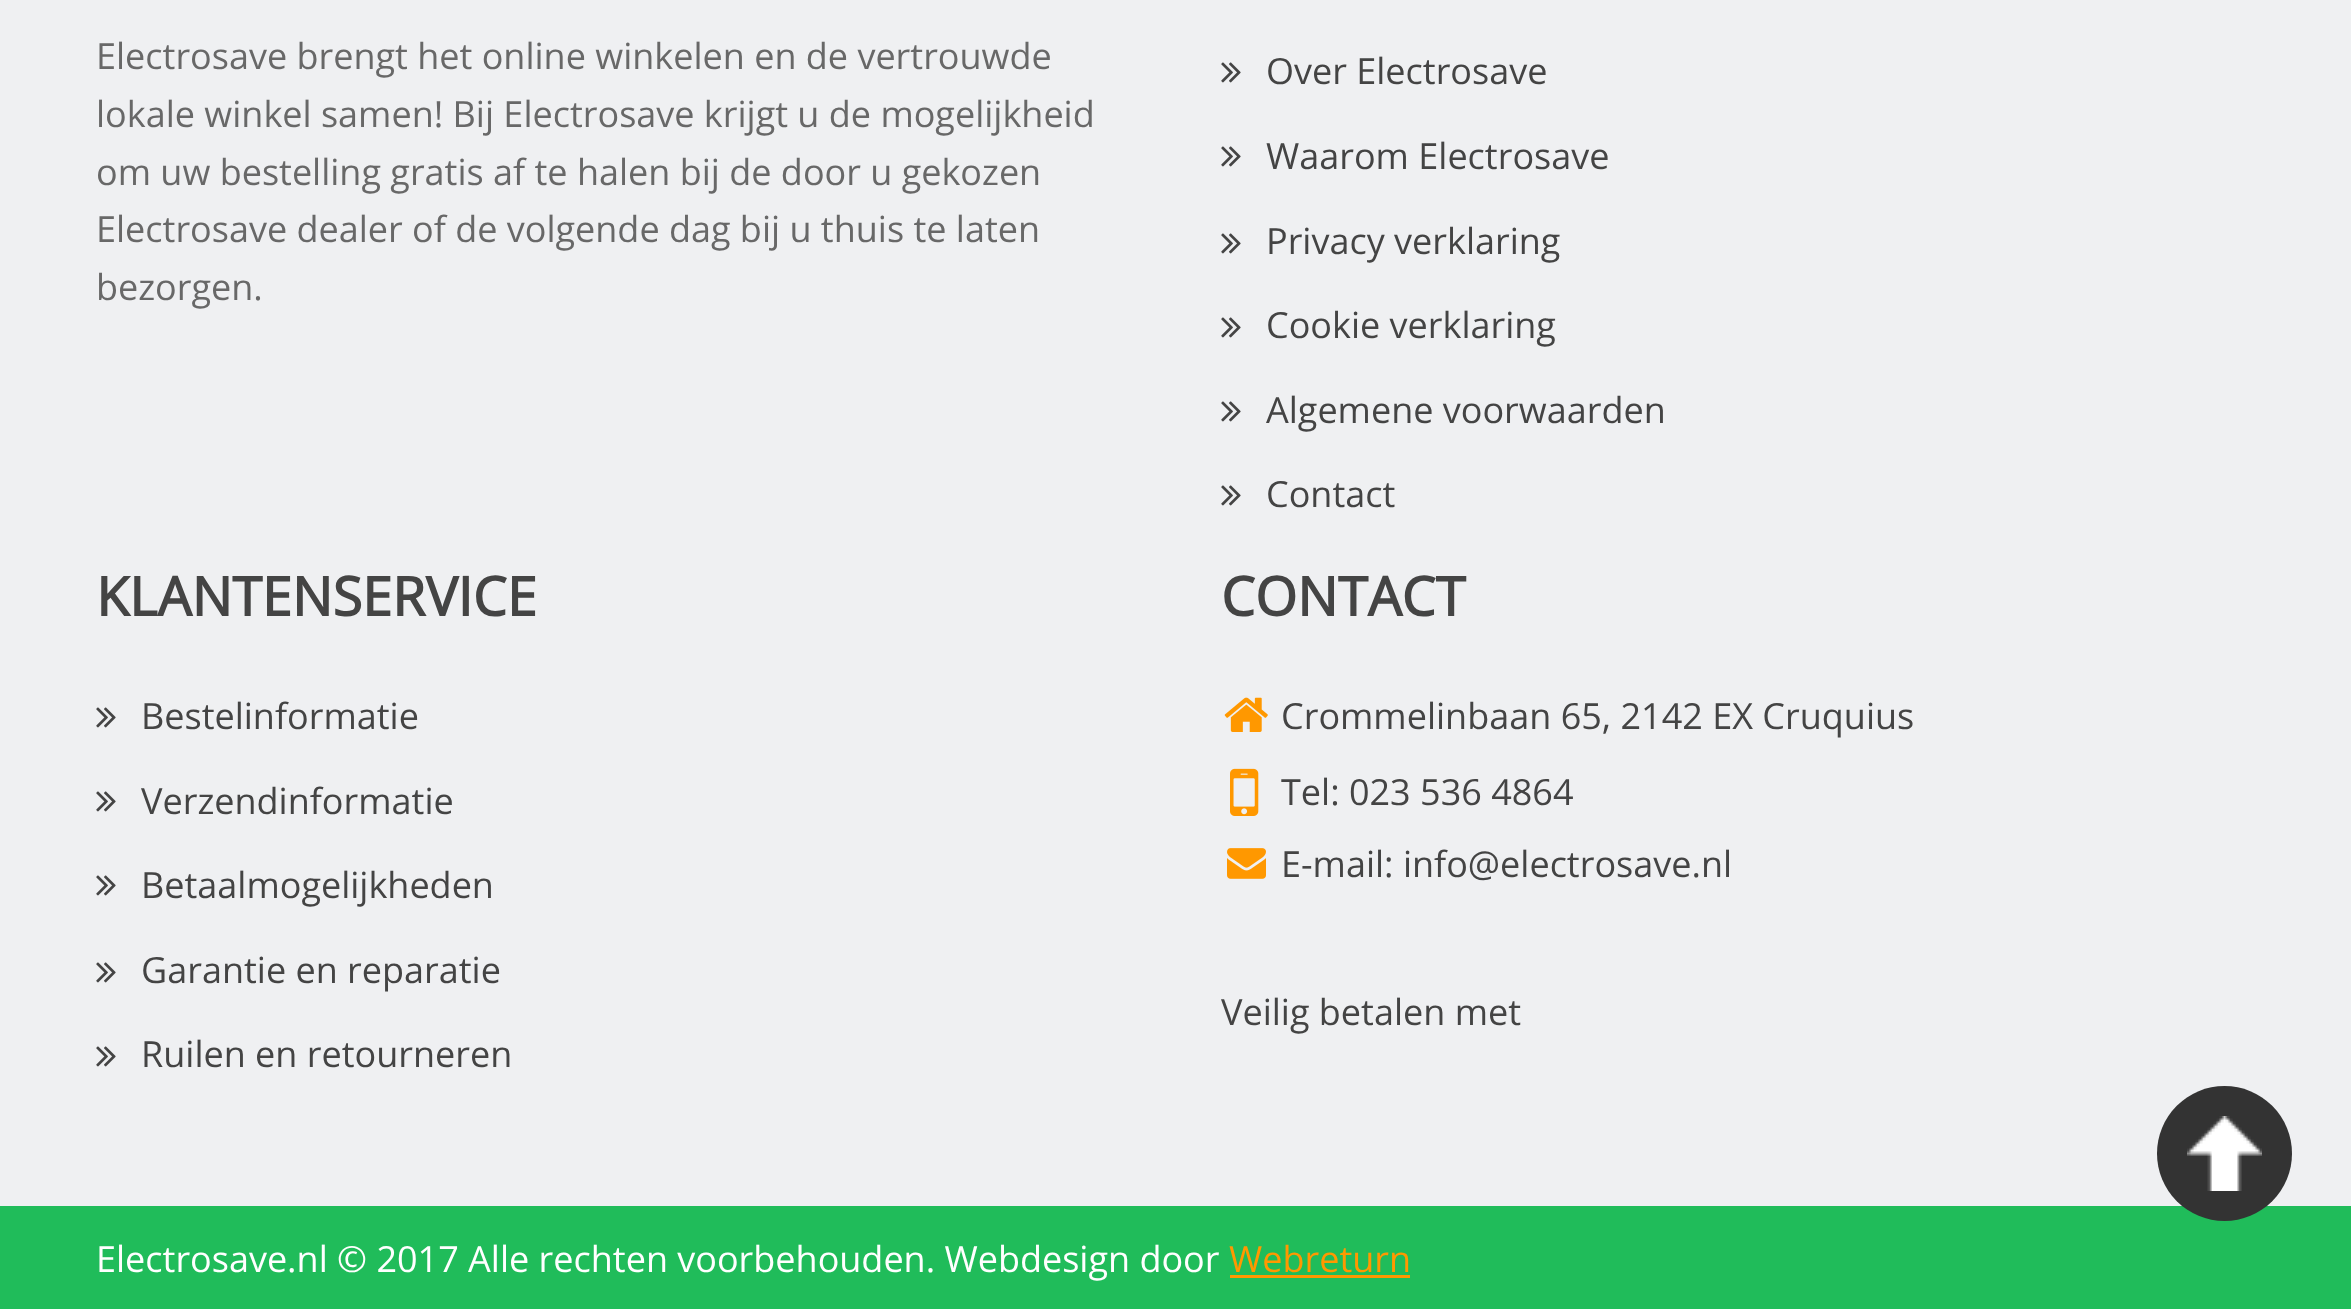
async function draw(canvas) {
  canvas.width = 2351;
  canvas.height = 1309;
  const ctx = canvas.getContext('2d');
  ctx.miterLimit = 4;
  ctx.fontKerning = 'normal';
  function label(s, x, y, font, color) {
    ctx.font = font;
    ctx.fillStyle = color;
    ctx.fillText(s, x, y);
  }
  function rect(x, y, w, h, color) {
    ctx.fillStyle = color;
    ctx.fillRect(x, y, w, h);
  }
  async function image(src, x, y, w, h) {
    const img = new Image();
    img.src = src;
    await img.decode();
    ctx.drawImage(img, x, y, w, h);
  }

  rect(0, 0, 2351, 1309, '#eff0f2');
  label('Electrosave brengt het online winkelen en de vertrouwde', 96, 69, '36px Open Sans', '#686868');
  label('lokale winkel samen! Bij Electrosave krijgt u de mogelijkheid', 96, 127, '36px Open Sans', '#686868');
  label('om uw bestelling gratis af te halen bij de door u gekozen', 96, 185, '36px Open Sans', '#686868');
  label('Electrosave dealer of de volgende dag bij u thuis te laten', 96, 242, '36px Open Sans', '#686868');
  label('bezorgen.', 96, 300, '36px Open Sans', '#686868');
  await image('assets/img1.png', 1221, 62, 20, 21);
  label('Over Electrosave', 1266, 84, '36px Open Sans', '#444');
  await image('assets/img1.png', 1221, 146, 20, 21);
  label('Waarom Electrosave', 1266, 169, '36px Open Sans', '#444');
  await image('assets/img1.png', 1221, 233, 20, 21);
  label('Privacy verklaring', 1266, 254, '36px Open Sans', '#444');
  await image('assets/img1.png', 1221, 317, 20, 21);
  label('Cookie verklaring', 1266, 338, '36px Open Sans', '#444');
  await image('assets/img1.png', 1221, 401, 20, 21);
  label('Algemene voorwaarden', 1266, 423, '36px Open Sans', '#444');
  await image('assets/img1.png', 1221, 485, 20, 21);
  label('Contact', 1266, 507, '36px Open Sans', '#444');
  label('KLANTENSERVICE', 96, 616, 'bold 54px Open Sans', '#444');
  await image('assets/img1.png', 96, 707, 20, 21);
  label('Bestelinformatie', 141, 729, '36px Open Sans', '#444');
  await image('assets/img1.png', 96, 791, 20, 21);
  label('Verzendinformatie', 141, 814, '36px Open Sans', '#444');
  await image('assets/img1.png', 96, 875, 20, 21);
  label('Betaalmogelijkheden', 141, 898, '36px Open Sans', '#444');
  await image('assets/img1.png', 96, 962, 20, 21);
  label('Garantie en reparatie', 141, 983, '36px Open Sans', '#444');
  await image('assets/img1.png', 96, 1046, 20, 21);
  label('Ruilen en retourneren', 141, 1067, '36px Open Sans', '#444');
  label('CONTACT', 1221, 616, 'bold 54px Open Sans', '#444');
  await image('assets/img2.png', 1224, 697, 44, 35);
  label('Crommelinbaan 65, 2142 EX Cruquius', 1281, 729, '36px Open Sans', '#444');
  await image('assets/img3.png', 1230, 768, 29, 48);
  label('Tel: 023 536 4864', 1281, 805, '36px Open Sans', '#444');
  await image('assets/img4.png', 1227, 848, 39, 31);
  label('E-mail: info@electrosave.nl', 1281, 877, '36px Open Sans', '#444');
  label('Veilig betalen met', 1221, 1025, '36px Open Sans', '#444');
  rect(0, 1206, 2351, 103, '#20bc5a');
  label('Electrosave.nl © 2017 Alle rechten voorbehouden. Webdesign door', 96, 1272, '36px Open Sans', '#fff');
  label('Webreturn', 1229, 1272, '36px Open Sans', '#ff9800');
  rect(1230, 1275, 180, 3, '#ff9800');
  ctx.fillStyle = '#333';
  ctx.beginPath();
  ctx.arc(2224.5, 1153.5, 67.5, 0, 2 * Math.PI);
  ctx.fill();
  await image('assets/img5.png', 2187, 1116, 75, 75);
}

draw(document.querySelector('canvas'));
